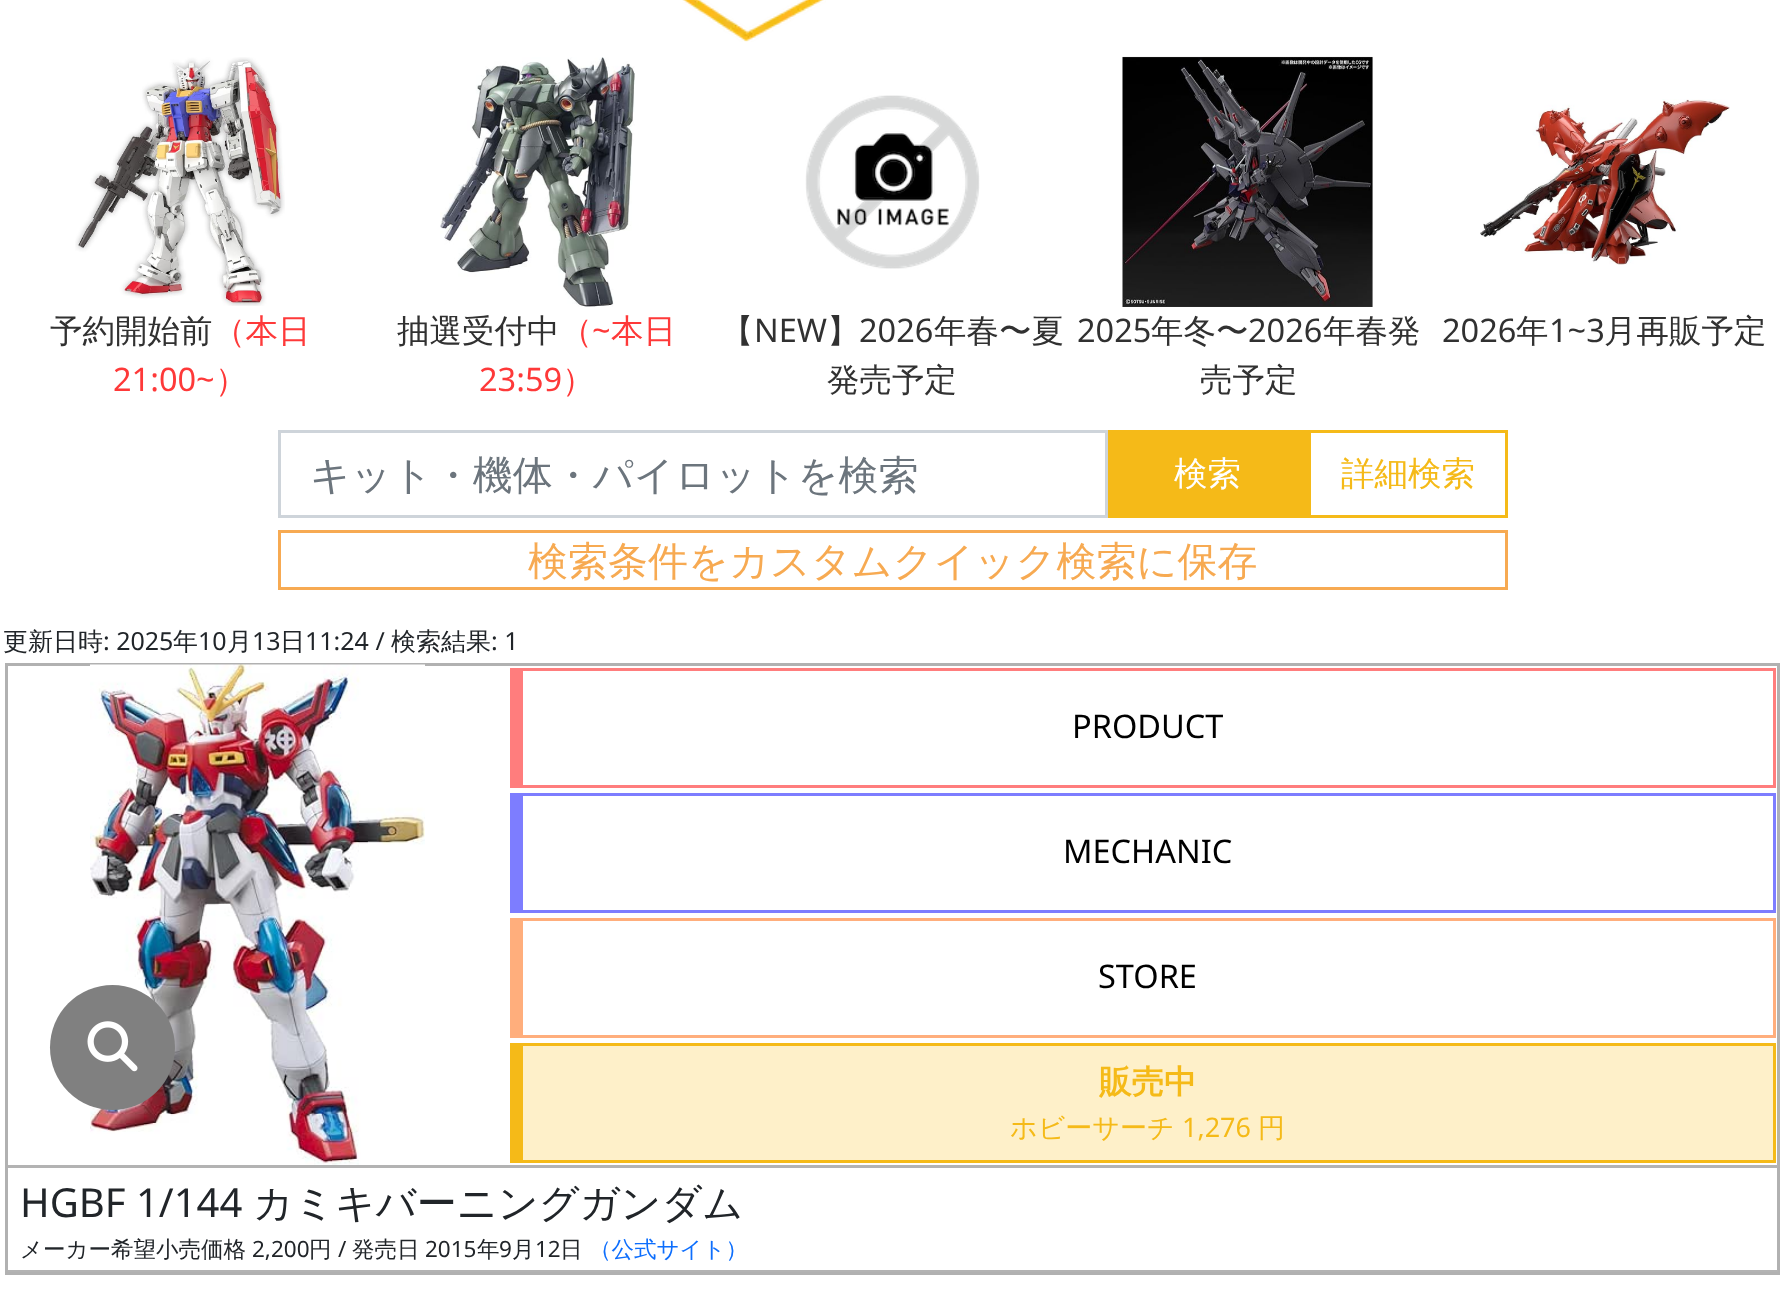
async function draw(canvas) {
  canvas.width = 1785;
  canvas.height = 1303;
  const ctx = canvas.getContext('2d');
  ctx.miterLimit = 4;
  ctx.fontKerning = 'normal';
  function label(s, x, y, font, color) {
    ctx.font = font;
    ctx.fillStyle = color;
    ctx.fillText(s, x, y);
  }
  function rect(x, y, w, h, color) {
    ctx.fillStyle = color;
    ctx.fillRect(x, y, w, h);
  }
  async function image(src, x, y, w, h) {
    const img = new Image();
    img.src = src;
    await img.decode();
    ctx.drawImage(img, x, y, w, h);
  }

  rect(0, 0, 1785, 1303, '#fff');
  await image('assets/img1.png', 682, 0, 144, 42);
  await image('assets/img2.png', 75, 57, 210, 249);
  label('予約開始前', 50, 342, '500 32.5px WenQuanYi Zen Hei', '#313131');
  label('（本日', 213, 342, '500 32.5px WenQuanYi Zen Hei', '#fe3939');
  label('21:00~', 113, 391, '32.5px Noto Sans', '#fe3939');
  label('）', 215, 391, '500 32.5px WenQuanYi Zen Hei', '#fe3939');
  await image('assets/img3.png', 440, 57, 195, 250);
  label('抽選受付中', 397, 342, '500 32.5px WenQuanYi Zen Hei', '#313131');
  label('（', 560, 342, '500 32.5px WenQuanYi Zen Hei', '#fe3939');
  label('~', 592, 342, '32.5px Noto Sans', '#fe3939');
  label('本日', 611, 342, '500 32.5px WenQuanYi Zen Hei', '#fe3939');
  label('23:59', 479, 391, '32.5px Noto Sans', '#fe3939');
  label('）', 562, 391, '500 32.5px WenQuanYi Zen Hei', '#fe3939');
  await image('assets/img4.png', 805, 95, 175, 174);
  label('【', 721, 342, '500 32.5px WenQuanYi Zen Hei', '#313131');
  label('NEW', 754, 342, '32.5px Noto Sans', '#313131');
  label('】', 827, 342, '500 32.5px WenQuanYi Zen Hei', '#313131');
  label('2026', 859, 342, '32.5px Noto Sans', '#313131');
  label('年春〜夏', 934, 342, '500 32.5px WenQuanYi Zen Hei', '#313131');
  label('発売予定', 827, 391, '500 32.5px WenQuanYi Zen Hei', '#313131');
  await image('assets/img5.png', 1122, 56, 251, 251);
  label('2025', 1077, 342, '32.5px Noto Sans', '#313131');
  label('年冬〜', 1151, 342, '500 32.5px WenQuanYi Zen Hei', '#313131');
  label('2026', 1248, 342, '32.5px Noto Sans', '#313131');
  label('年春発', 1323, 342, '500 32.5px WenQuanYi Zen Hei', '#313131');
  label('売予定', 1200, 391, '500 32.5px WenQuanYi Zen Hei', '#313131');
  await image('assets/img6.png', 1480, 99, 250, 166);
  label('2026', 1442, 342, '32.5px Noto Sans', '#313131');
  label('年', 1516, 342, '500 32.5px WenQuanYi Zen Hei', '#313131');
  label('1~3', 1549, 342, '32.5px Noto Sans', '#313131');
  label('月再販予定', 1604, 342, '500 32.5px WenQuanYi Zen Hei', '#313131');
  ctx.strokeStyle = '#ced4da';
  ctx.lineWidth = 3;
  ctx.strokeRect(279.5, 431.5, 827, 85);
  label('キット・機体・パイロットを検索', 310, 489, '500 40px WenQuanYi Zen Hei', '#6c757d');
  rect(1108, 430, 200, 88, '#f5ba18');
  label('検索', 1174, 485, '500 33.5px WenQuanYi Zen Hei', '#fff');
  ctx.strokeStyle = '#f5ba18';
  ctx.strokeRect(1309.5, 431.5, 197, 85);
  label('詳細検索', 1341, 485, '500 33.5px WenQuanYi Zen Hei', '#f5ba18');
  ctx.strokeStyle = '#f7aa52';
  ctx.strokeRect(279.5, 531.5, 1227, 57);
  label('検索条件をカスタムクイック検索に保存', 528, 575, '500 40px WenQuanYi Zen Hei', '#f7aa52');
  label('更新日時', 3, 650, '500 25px WenQuanYi Zen Hei', '#212529');
  label(': 2025', 103, 650, '25px Noto Sans', '#212529');
  label('年', 173, 650, '500 25px WenQuanYi Zen Hei', '#212529');
  label('10', 198, 650, '25px Noto Sans', '#212529');
  label('月', 227, 650, '500 25px WenQuanYi Zen Hei', '#212529');
  label('13', 252, 650, '25px Noto Sans', '#212529');
  label('日', 280, 650, '500 25px WenQuanYi Zen Hei', '#212529');
  label('11:24 /', 305, 650, '25px Noto Sans', '#212529');
  label('検索結果', 391, 650, '500 25px WenQuanYi Zen Hei', '#212529');
  label(': 1', 491, 650, '25px Noto Sans', '#212529');
  ctx.strokeStyle = '#b1b1b1';
  ctx.strokeRect(6.5, 664.5, 1772, 609);
  await image('assets/img7.png', 90, 664, 335, 501);
  rect(523, 668, 1252, 3, '#ff7d7d');
  rect(1773, 668, 3, 120, '#ff7d7d');
  rect(523, 785, 1252, 3, '#ff7d7d');
  rect(510, 668, 13, 120, '#ff7d7d');
  label('PRODUCT', 1072, 738, '32.5px Noto Sans', '#000');
  rect(523, 793, 1252, 3, '#7d7dff');
  rect(1773, 793, 3, 120, '#7d7dff');
  rect(523, 910, 1252, 3, '#7d7dff');
  rect(510, 793, 13, 120, '#7d7dff');
  label('MECHANIC', 1063, 863, '32.5px Noto Sans', '#000');
  rect(523, 918, 1252, 3, '#ffae7c');
  rect(1773, 918, 3, 120, '#ffae7c');
  rect(523, 1035, 1252, 3, '#ffae7c');
  rect(510, 918, 13, 120, '#ffae7c');
  label('STORE', 1098, 988, '32.5px Noto Sans', '#000');
  rect(523, 1046, 1250, 114, '#fef0c9');
  rect(523, 1043, 1252, 3, '#f5ba18');
  rect(1773, 1043, 3, 120, '#f5ba18');
  rect(523, 1160, 1252, 3, '#f5ba18');
  rect(510, 1043, 13, 120, '#f5ba18');
  label('販売中', 1099, 1093, 'bold 32.5px WenQuanYi Zen Hei', '#f5ba18');
  label('ホビーサーチ', 1010, 1137, '500 27px WenQuanYi Zen Hei', '#f5ba18');
  label('1,276', 1182, 1137, '27px Noto Sans', '#f5ba18');
  label('円', 1258, 1137, '500 27px WenQuanYi Zen Hei', '#f5ba18');
  rect(8, 1165, 1770, 3, '#b3b3b3');
  rect(8, 1270, 1770, 2, '#b3b3b3');
  label('HGBF 1/144', 20, 1217, '40px Noto Sans', '#212529');
  label('カミキバーニングガンダム', 253, 1217, '500 40px WenQuanYi Zen Hei', '#212529');
  label('メーカー希望小売価格', 20, 1257, '500 22.5px WenQuanYi Zen Hei', '#212529');
  label('2,200', 252, 1257, '22.5px Noto Sans', '#212529');
  label('円', 309, 1257, '500 22.5px WenQuanYi Zen Hei', '#212529');
  label('/', 338, 1257, '22.5px Noto Sans', '#212529');
  label('発売日', 352, 1257, '500 22.5px WenQuanYi Zen Hei', '#212529');
  label('2015', 425, 1257, '22.5px Noto Sans', '#212529');
  label('年', 477, 1257, '500 22.5px WenQuanYi Zen Hei', '#212529');
  label('9', 499, 1257, '22.5px Noto Sans', '#212529');
  label('月', 512, 1257, '500 22.5px WenQuanYi Zen Hei', '#212529');
  label('12', 535, 1257, '22.5px Noto Sans', '#212529');
  label('日', 560, 1257, '500 22.5px WenQuanYi Zen Hei', '#212529');
  label('（公式サイト）', 589, 1257, '500 22.5px WenQuanYi Zen Hei', '#0d6efd');
  ctx.fillStyle = '#808080';
  ctx.beginPath();
  ctx.arc(112.5, 1047.5, 62.5, 0, 2 * Math.PI);
  ctx.fill();
  await image('assets/img8.png', 87, 1021, 51, 51);
}

draw(document.querySelector('canvas'));
